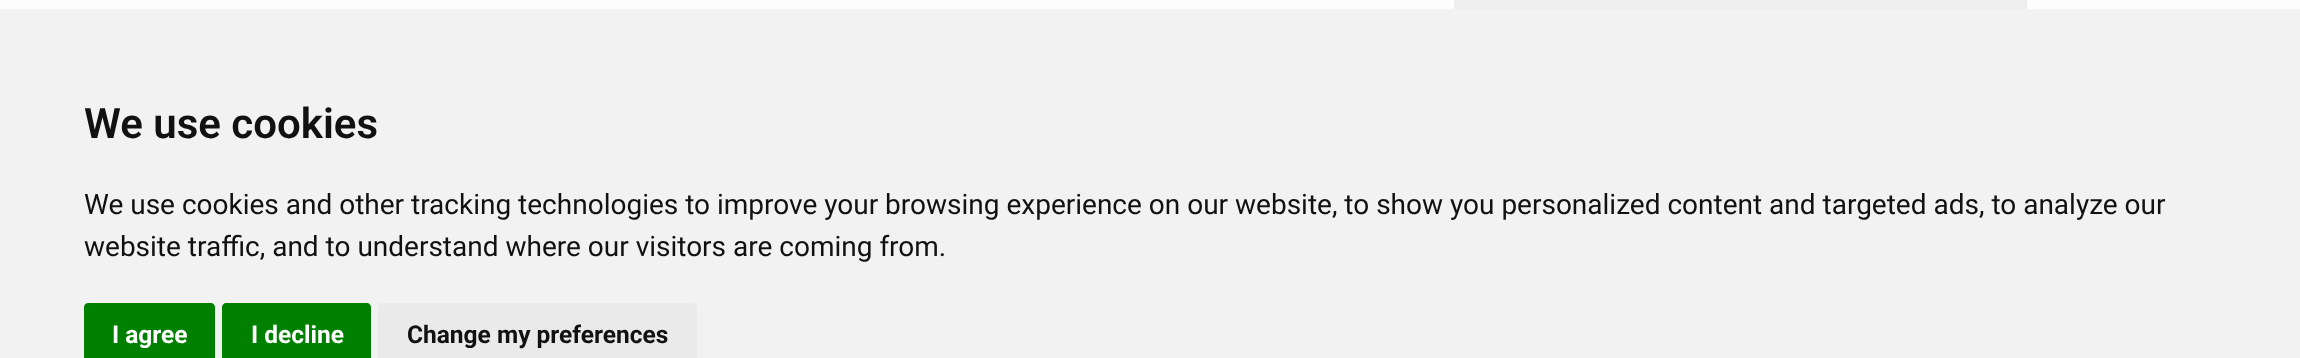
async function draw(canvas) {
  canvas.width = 2300;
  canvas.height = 358;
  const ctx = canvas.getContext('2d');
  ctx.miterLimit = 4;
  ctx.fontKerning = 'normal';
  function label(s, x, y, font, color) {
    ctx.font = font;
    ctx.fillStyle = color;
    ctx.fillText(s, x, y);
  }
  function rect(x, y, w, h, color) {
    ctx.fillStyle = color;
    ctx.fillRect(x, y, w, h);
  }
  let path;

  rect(0, 0, 2300, 358, '#fdfdfd');
  rect(1454, 0, 573, 9, '#eee');
  rect(0, 9, 2300, 349, '#f2f2f2');
  label('We use cookies', 84, 138, '600 42px Roboto', '#111');
  label('We use cookies and other tracking technologies to improve your browsing experience on our website, to show you personalized content and targeted ads, to analyze our', 84, 214, '28px Roboto', '#111');
  label('website traffic, and to understand where our visitors are coming from.', 84, 256, '28px Roboto', '#111');
  ctx.fillStyle = '#008000';
  path = new Path2D('M88 303H211C213 303 215 305 215 307V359H84V307C84 305 86 303 88 303Z');
  ctx.fill(path);
  label('I agree', 112, 343, 'bold 24.5px Roboto', '#fff');
  ctx.fillStyle = '#008000';
  path = new Path2D('M226 303H367C369 303 371 305 371 307V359H222V307C222 305 224 303 226 303Z');
  ctx.fill(path);
  label('I decline', 251, 343, 'bold 24.5px Roboto', '#fff');
  ctx.fillStyle = '#eaeaea';
  path = new Path2D('M382 303H693C695 303 697 305 697 307V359H378V307C378 305 380 303 382 303Z');
  ctx.fill(path);
  label('Change my preferences', 407, 343, 'bold 24.5px Roboto', '#111');
}

draw(document.querySelector('canvas'));
